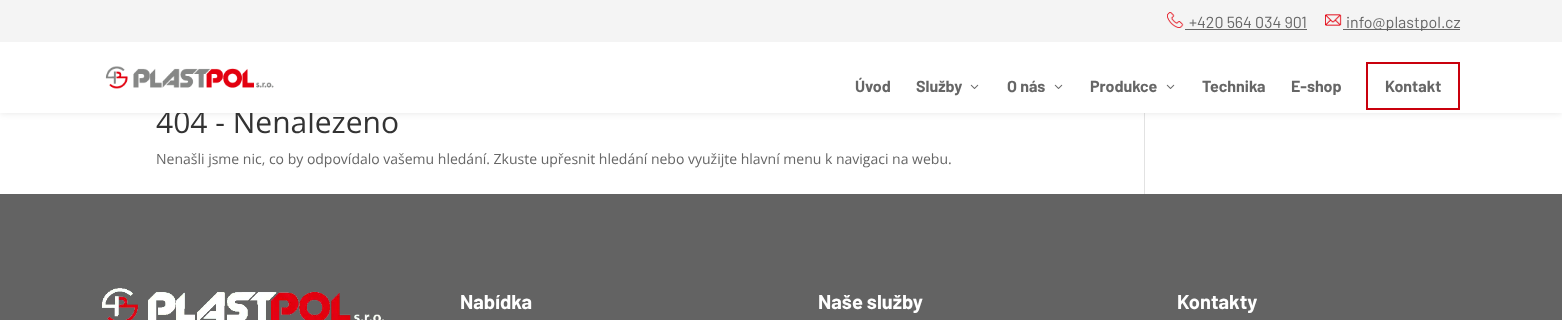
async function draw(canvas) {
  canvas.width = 1562;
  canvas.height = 320;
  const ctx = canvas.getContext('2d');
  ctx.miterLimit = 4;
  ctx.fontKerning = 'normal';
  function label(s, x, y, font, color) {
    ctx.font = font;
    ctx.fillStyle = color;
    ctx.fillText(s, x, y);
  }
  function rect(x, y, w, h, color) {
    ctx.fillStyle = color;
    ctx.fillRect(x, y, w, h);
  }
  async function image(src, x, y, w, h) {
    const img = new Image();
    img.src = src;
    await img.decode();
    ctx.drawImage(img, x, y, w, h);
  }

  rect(0, 0, 1562, 320, '#fff');
  rect(1144, 113, 1, 81, '#e2e2e2');
  ctx.fillStyle = '#0000001a';
  ctx.filter = 'blur(3.5px)';
  ctx.beginPath();
  ctx.rect(0, 42, 1562, 71);
  ctx.fill();
  ctx.filter = 'none';
  rect(0, 0, 1562, 42, '#f4f4f4');
  await image('assets/img1.png', 1167, 12, 17, 16);
  label('+420 564 034 901', 1189, 28, '16px Barlow', '#666');
  rect(1185, 29, 122, 1, '#666');
  await image('assets/img2.png', 1325, 14, 17, 12);
  rect(1343, 29, 117, 1, '#666');
  label('info@plastpol.cz', 1346, 28, '16px Barlow', '#666');
  label('404 - Nenalezeno', 156, 133, '30px Open Sans', '#333');
  rect(0, 42, 1562, 71, '#fff');
  await image('assets/img3.png', 105, 66, 169, 23);
  label('Úvod', 855, 92, 'bold 16px Barlow', '#666');
  label('Služby', 916, 92, 'bold 16px Barlow', '#666');
  await image('assets/img4.png', 970, 84, 9, 5);
  label('O nás', 1007, 92, 'bold 16px Barlow', '#666');
  await image('assets/img4.png', 1054, 84, 9, 5);
  label('Produkce', 1090, 92, 'bold 16px Barlow', '#666');
  await image('assets/img4.png', 1166, 84, 9, 5);
  label('Technika', 1202, 92, 'bold 16px Barlow', '#666');
  label('E-shop', 1291, 92, 'bold 16px Barlow', '#666');
  ctx.strokeStyle = '#c9000d';
  ctx.lineWidth = 2;
  ctx.strokeRect(1367, 63, 92, 46);
  label('Kontakt', 1385, 92, 'bold 16px Barlow', '#666');
  label('Nenašli jsme nic, co by odpovídalo vašemu hledání. Zkuste upřesnit hledání nebo využijte hlavní menu k navigaci na webu.', 156, 164, '14px Open Sans', '#666');
  rect(0, 194, 1562, 126, '#636363');
  await image('assets/img5.png', 102, 288, 282, 32);
  label('Nabídka', 460, 309, 'bold 20px Barlow', '#fff');
  label('Naše služby', 818, 309, 'bold 20px Barlow', '#fff');
  label('Kontakty', 1177, 309, 'bold 20px Barlow', '#fff');
}

draw(document.querySelector('canvas'));
